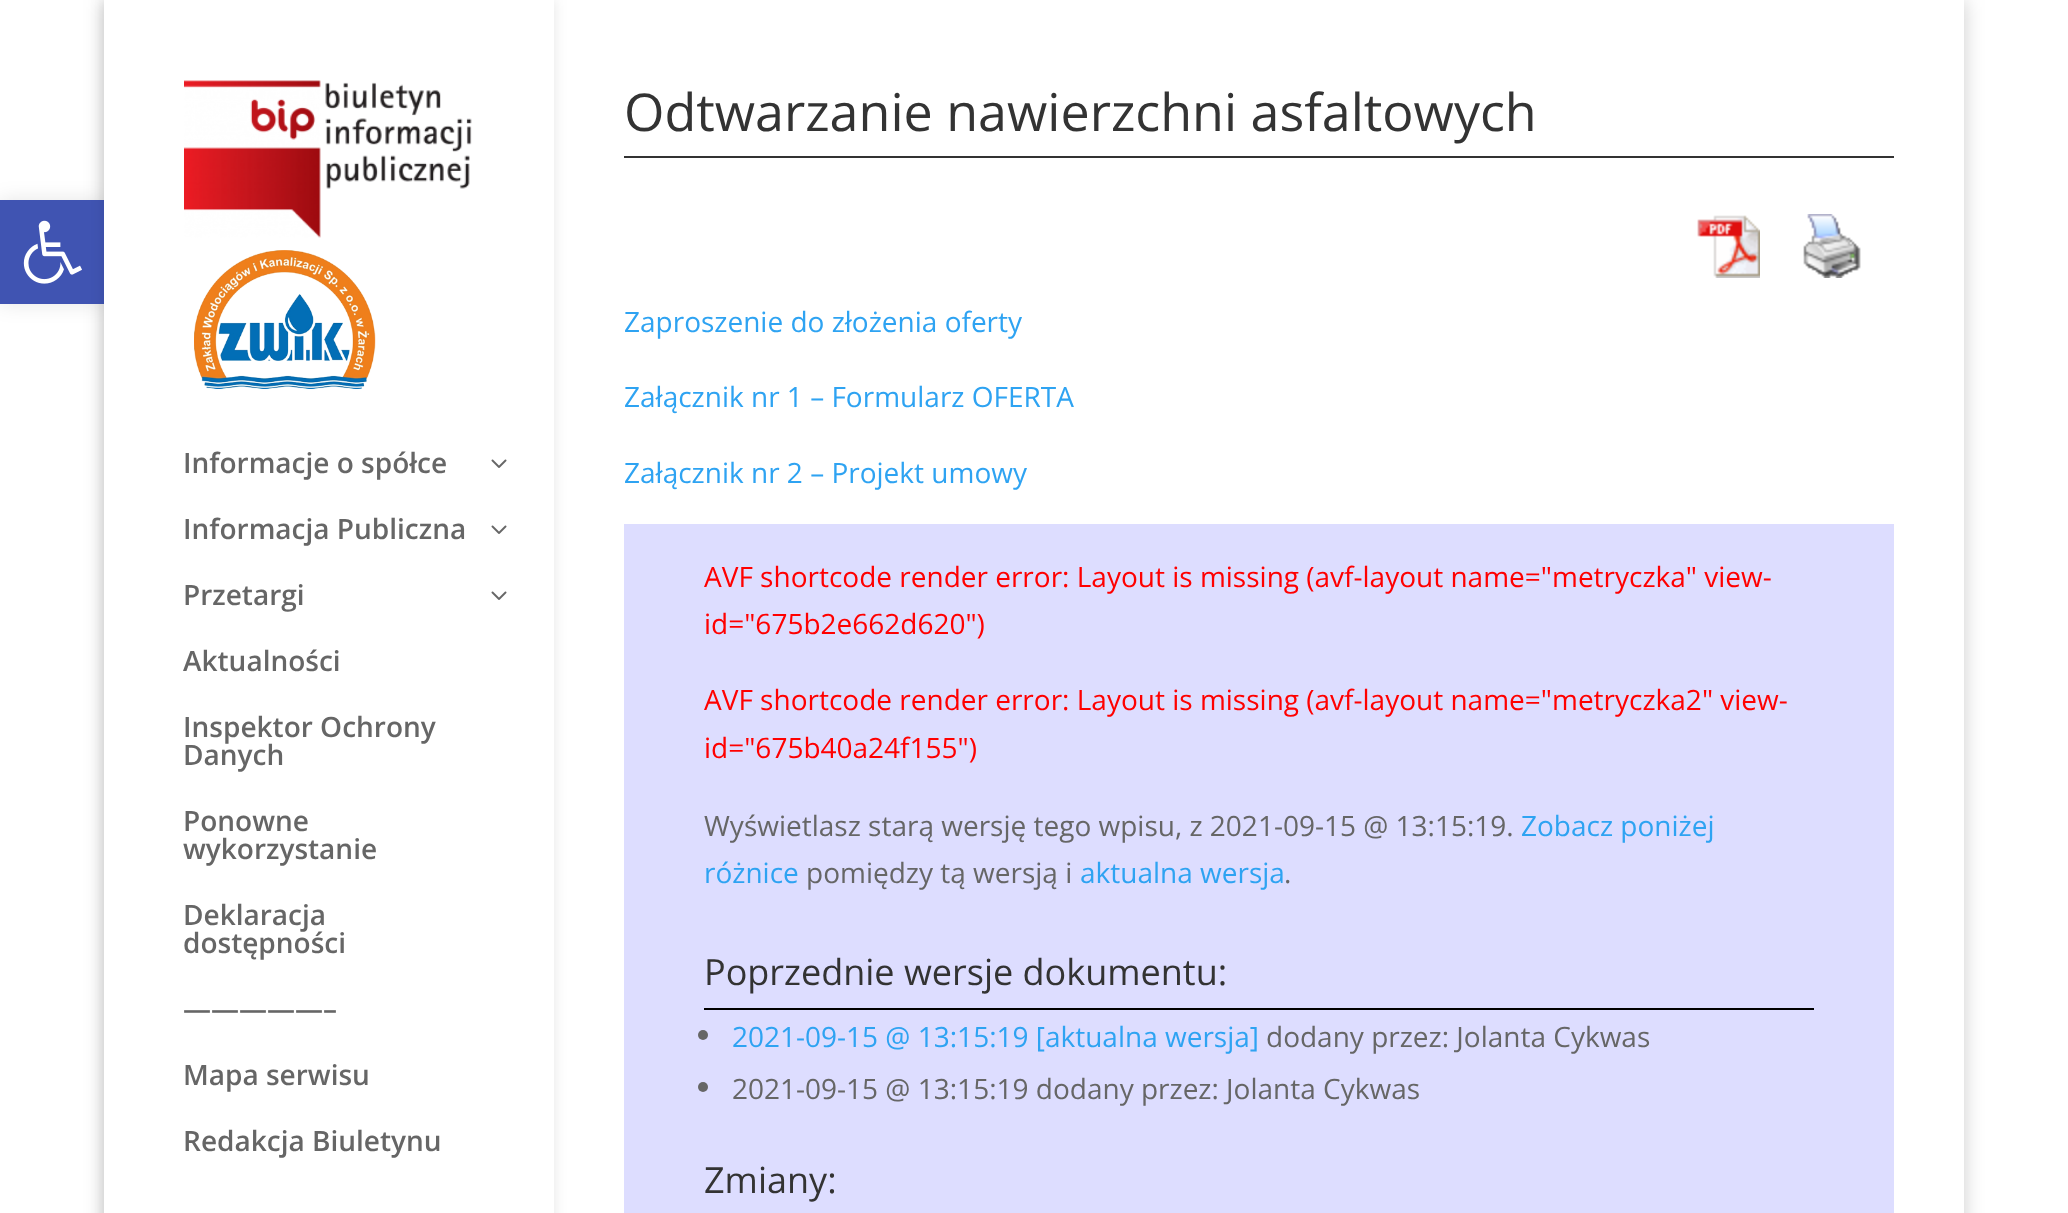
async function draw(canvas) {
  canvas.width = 2068;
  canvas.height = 1213;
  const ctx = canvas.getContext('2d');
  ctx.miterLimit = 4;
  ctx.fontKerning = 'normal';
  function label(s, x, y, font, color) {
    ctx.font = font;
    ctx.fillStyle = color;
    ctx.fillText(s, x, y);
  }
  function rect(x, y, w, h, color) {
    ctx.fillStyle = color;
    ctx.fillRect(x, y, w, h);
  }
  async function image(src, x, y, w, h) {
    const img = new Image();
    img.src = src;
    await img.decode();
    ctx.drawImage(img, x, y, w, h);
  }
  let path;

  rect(0, 0, 2068, 1213, '#fff');
  ctx.fillStyle = '#0000001a';
  ctx.filter = 'blur(10px)';
  ctx.beginPath();
  ctx.rect(0, 200, 104, 104);
  ctx.fill();
  ctx.filter = 'none';
  ctx.save();
  path = new Path2D('M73 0H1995V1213H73ZM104 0H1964V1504H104Z');
  ctx.clip(path, 'evenodd');
  ctx.fillStyle = '#00000033';
  ctx.filter = 'blur(10px)';
  ctx.beginPath();
  ctx.rect(104, 0, 1860, 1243);
  ctx.fill();
  ctx.filter = 'none';
  ctx.restore();
  rect(0, 200, 104, 104, '#4054b2');
  await image('assets/img1.png', 23, 220, 59, 64);
  ctx.fillStyle = '#0000001a';
  ctx.filter = 'blur(7px)';
  ctx.beginPath();
  ctx.rect(104, 0, 450, 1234);
  ctx.fill();
  ctx.filter = 'none';
  rect(104, 0, 450, 1213, '#fff');
  await image('assets/img2.png', 184, 80, 288, 158);
  await image('assets/img3.png', 194, 250, 182, 139);
  label('Informacje o spółce', 183, 473, '600 28px Open Sans', '#666');
  await image('assets/img4.png', 491, 459, 16, 9);
  label('Informacja Publiczna', 183, 539, '600 28px Open Sans', '#666');
  await image('assets/img4.png', 491, 525, 16, 9);
  label('Przetargi', 183, 605, '600 28px Open Sans', '#666');
  await image('assets/img4.png', 491, 591, 16, 9);
  label('Aktualności', 183, 671, '600 28px Open Sans', '#666');
  label('Inspektor Ochrony', 183, 737, '600 28px Open Sans', '#666');
  label('Danych', 183, 765, '600 28px Open Sans', '#666');
  label('Ponowne', 183, 831, '600 28px Open Sans', '#666');
  label('wykorzystanie', 183, 859, '600 28px Open Sans', '#666');
  label('Deklaracja', 183, 925, '600 28px Open Sans', '#666');
  label('dostępności', 183, 953, '600 28px Open Sans', '#666');
  label('—————–', 183, 1019, '600 28px Open Sans', '#666');
  label('Mapa serwisu', 183, 1085, '600 28px Open Sans', '#666');
  label('Redakcja Biuletynu', 183, 1151, '600 28px Open Sans', '#666');
  rect(624, 156, 1270, 2, '#333');
  label('Odtwarzanie nawierzchni asfaltowych', 624, 131, '52px Open Sans', '#333');
  await image('assets/img5.png', 1697, 215, 63, 63);
  await image('assets/img6.png', 1803, 214, 58, 64);
  label('Zaproszenie do złożenia oferty', 624, 332, '28px Open Sans', '#2ea3f2');
  label('Załącznik nr 1 – Formularz OFERTA', 624, 407, '28px Open Sans', '#2ea3f2');
  label('Załącznik nr 2 – Projekt umowy', 624, 483, '28px Open Sans', '#2ea3f2');
  rect(624, 524, 1270, 689, '#ddf');
  label('AVF shortcode render error: Layout is missing (avf-layout name="metryczka" view-', 704, 587, '28px Open Sans', '#f00');
  label('id="675b2e662d620")', 704, 634, '28px Open Sans', '#f00');
  label('AVF shortcode render error: Layout is missing (avf-layout name="metryczka2" view-', 704, 710, '28px Open Sans', '#f00');
  label('id="675b40a24f155")', 704, 758, '28px Open Sans', '#f00');
  label('Wyświetlasz starą wersję tego wpisu, z 2021-09-15 @ 13:15:19.', 704, 836, '28px Open Sans', '#666');
  label('Zobacz poniżej', 1521, 836, '28px Open Sans', '#2ea3f2');
  label('różnice', 704, 883, '28px Open Sans', '#2ea3f2');
  label('pomiędzy tą wersją i', 806, 883, '28px Open Sans', '#666');
  label('aktualna wersja', 1080, 883, '28px Open Sans', '#2ea3f2');
  label('.', 1284, 883, '28px Open Sans', '#666');
  rect(704, 1008, 1110, 2, '#000');
  label('Poprzednie wersje dokumentu:', 704, 985, '36px Open Sans', '#333');
  ctx.fillStyle = '#666';
  ctx.beginPath();
  ctx.arc(703, 1035, 5, 0, 2 * Math.PI);
  ctx.fill();
  label('2021-09-15 @ 13:15:19 [aktualna wersja]', 732, 1047, '28px Open Sans', '#2ea3f2');
  label('dodany przez: Jolanta Cykwas', 1266, 1047, '28px Open Sans', '#666');
  ctx.beginPath();
  ctx.arc(703, 1087, 5, 0, 2 * Math.PI);
  ctx.fill();
  label('2021-09-15 @ 13:15:19 dodany przez: Jolanta Cykwas', 732, 1099, '28px Open Sans', '#666');
  label('Zmiany:', 704, 1193, '36px Open Sans', '#333');
}

draw(document.querySelector('canvas'));
